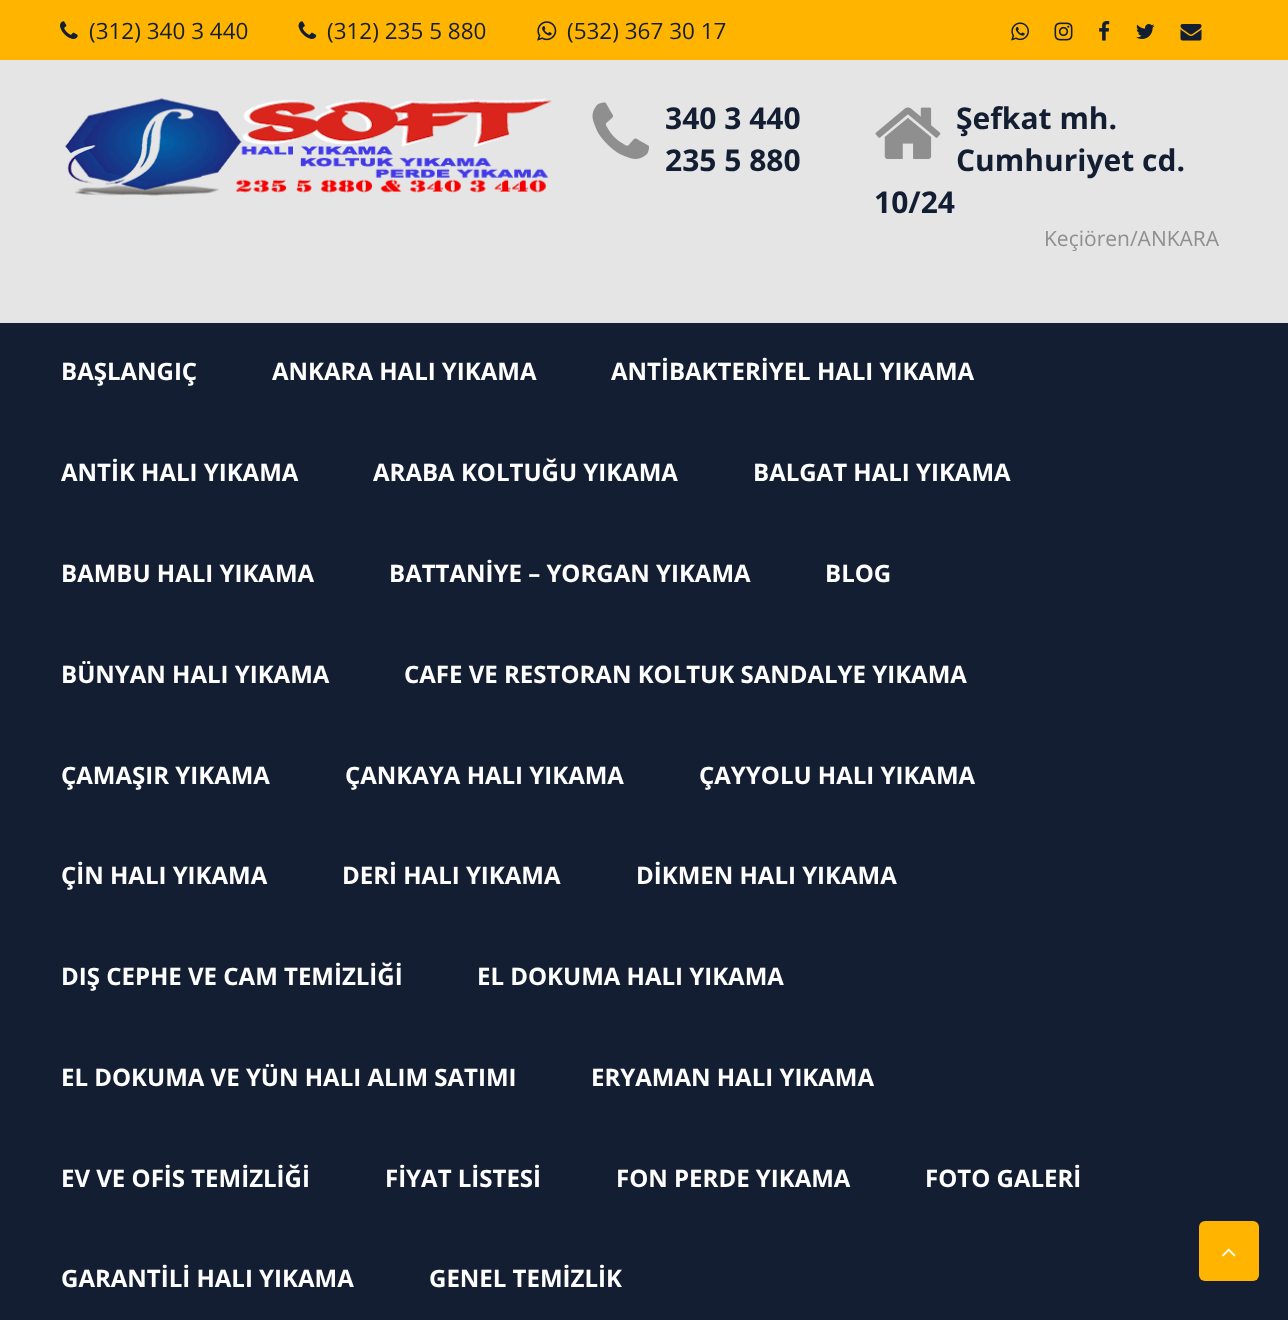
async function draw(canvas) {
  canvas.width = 1288;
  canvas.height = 1320;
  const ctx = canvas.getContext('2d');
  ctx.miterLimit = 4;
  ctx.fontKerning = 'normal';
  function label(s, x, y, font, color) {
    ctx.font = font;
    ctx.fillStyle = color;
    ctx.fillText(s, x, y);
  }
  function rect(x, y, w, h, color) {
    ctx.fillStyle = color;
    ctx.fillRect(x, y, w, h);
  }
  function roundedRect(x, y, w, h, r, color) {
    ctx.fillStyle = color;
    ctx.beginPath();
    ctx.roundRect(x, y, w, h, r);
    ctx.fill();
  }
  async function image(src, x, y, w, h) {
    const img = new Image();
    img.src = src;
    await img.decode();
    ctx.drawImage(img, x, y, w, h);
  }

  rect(0, 0, 1288, 1320, '#e5e5e5');
  rect(0, 0, 1288, 60, '#ffb500');
  await image('assets/img1.png', 60, 21, 18, 18);
  label('(312) 340 3 440', 89, 39, '22.5px Open Sans', '#131e32');
  await image('assets/img2.png', 298, 21, 19, 18);
  label('(312) 235 5 880', 327, 39, '22.5px Open Sans', '#131e32');
  await image('assets/img3.png', 537, 21, 20, 20);
  label('(532) 367 30 17', 567, 39, '22.5px Open Sans', '#131e32');
  await image('assets/img4.png', 1011, 22, 18, 19);
  await image('assets/img5.png', 1054, 22, 19, 19);
  await image('assets/img6.png', 1099, 21, 11, 20);
  await image('assets/img7.png', 1136, 24, 19, 15);
  await image('assets/img8.png', 1180, 24, 22, 17);
  await image('assets/img9.png', 65, 98, 487, 98);
  await image('assets/img10.png', 592, 102, 57, 57);
  label('340 3 440', 665, 129, 'bold 30px Open Sans', '#131e32');
  label('235 5 880', 665, 171, 'bold 30px Open Sans', '#131e32');
  await image('assets/img11.png', 875, 107, 66, 52);
  label('Şefkat mh.', 956, 129, 'bold 30px Open Sans', '#131e32');
  label('Cumhuriyet cd.', 956, 171, 'bold 30px Open Sans', '#131e32');
  label('10/24', 874, 213, 'bold 30px Open Sans', '#131e32');
  label('Keçiören/ANKARA', 1044, 246, '21px Open Sans', '#8f8f8f');
  rect(0, 323, 1288, 997, '#131e32');
  label('BAŞLANGIÇ', 61, 380, 'bold 24px Open Sans', '#fff');
  label('ANKARA HALI YIKAMA', 272, 380, 'bold 24px Open Sans', '#fff');
  label('ANTİBAKTERİYEL HALI YIKAMA', 611, 380, 'bold 24px Open Sans', '#fff');
  label('ANTİK HALI YIKAMA', 61, 481, 'bold 24px Open Sans', '#fff');
  label('ARABA KOLTUĞU YIKAMA', 373, 481, 'bold 24px Open Sans', '#fff');
  label('BALGAT HALI YIKAMA', 753, 481, 'bold 24px Open Sans', '#fff');
  label('BAMBU HALI YIKAMA', 61, 582, 'bold 24px Open Sans', '#fff');
  label('BATTANİYE – YORGAN YIKAMA', 389, 582, 'bold 24px Open Sans', '#fff');
  label('BLOG', 825, 582, 'bold 24px Open Sans', '#fff');
  label('BÜNYAN HALI YIKAMA', 61, 683, 'bold 24px Open Sans', '#fff');
  label('CAFE VE RESTORAN KOLTUK SANDALYE YIKAMA', 404, 683, 'bold 24px Open Sans', '#fff');
  label('ÇAMAŞIR YIKAMA', 61, 784, 'bold 24px Open Sans', '#fff');
  label('ÇANKAYA HALI YIKAMA', 345, 784, 'bold 24px Open Sans', '#fff');
  label('ÇAYYOLU HALI YIKAMA', 699, 784, 'bold 24px Open Sans', '#fff');
  label('ÇİN HALI YIKAMA', 61, 884, 'bold 24px Open Sans', '#fff');
  label('DERİ HALI YIKAMA', 342, 884, 'bold 24px Open Sans', '#fff');
  label('DİKMEN HALI YIKAMA', 636, 884, 'bold 24px Open Sans', '#fff');
  label('DIŞ CEPHE VE CAM TEMİZLİĞİ', 61, 985, 'bold 24px Open Sans', '#fff');
  label('EL DOKUMA HALI YIKAMA', 477, 985, 'bold 24px Open Sans', '#fff');
  label('EL DOKUMA VE YÜN HALI ALIM SATIMI', 61, 1086, 'bold 24px Open Sans', '#fff');
  label('ERYAMAN HALI YIKAMA', 591, 1086, 'bold 24px Open Sans', '#fff');
  label('EV VE OFİS TEMİZLİĞİ', 61, 1187, 'bold 24px Open Sans', '#fff');
  label('FİYAT LİSTESİ', 385, 1187, 'bold 24px Open Sans', '#fff');
  label('FON PERDE YIKAMA', 616, 1187, 'bold 24px Open Sans', '#fff');
  label('FOTO GALERİ', 925, 1187, 'bold 24px Open Sans', '#fff');
  label('GARANTİLİ HALI YIKAMA', 61, 1287, 'bold 24px Open Sans', '#fff');
  label('GENEL TEMİZLİK', 429, 1287, 'bold 24px Open Sans', '#fff');
  roundedRect(1199, 1221, 60, 60, 6, '#ffb500');
  await image('assets/img12.png', 1222, 1248, 14, 9);
}

draw(document.querySelector('canvas'));
